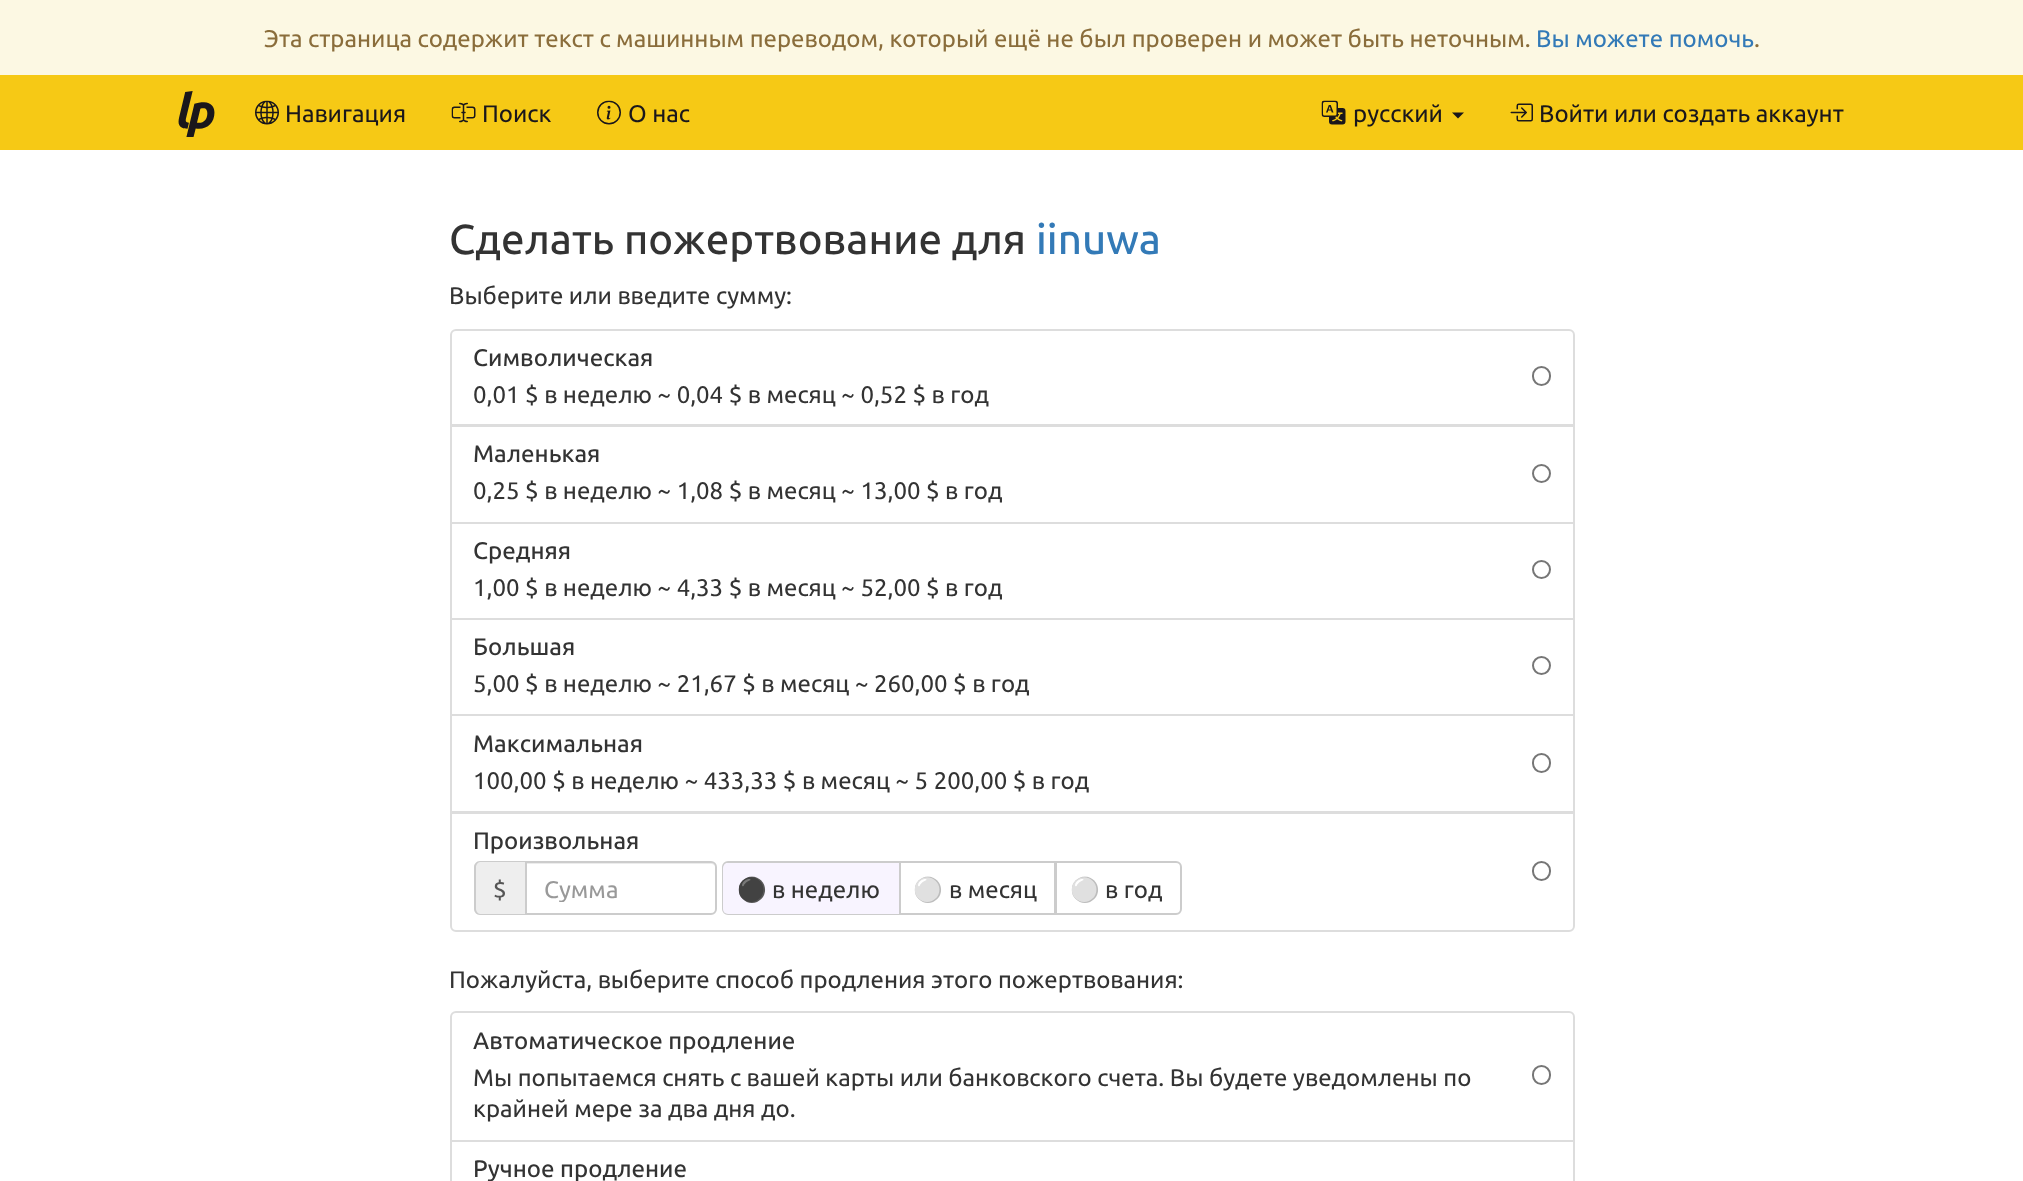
async function draw(canvas) {
  canvas.width = 2023;
  canvas.height = 1181;
  const ctx = canvas.getContext('2d');
  ctx.miterLimit = 4;
  ctx.fontKerning = 'none';
  function label(s, x, y, font, color) {
    ctx.font = font;
    ctx.fillStyle = color;
    ctx.fillText(s, x, y);
  }
  function rect(x, y, w, h, color) {
    ctx.fillStyle = color;
    ctx.fillRect(x, y, w, h);
  }
  async function image(src, x, y, w, h) {
    const img = new Image();
    img.src = src;
    await img.decode();
    ctx.drawImage(img, x, y, w, h);
  }
  let path;

  rect(0, 0, 2023, 1181, '#fff');
  rect(0, 0, 2023, 75, '#fcf8e3');
  label('Эта страница содержит текст с машинным переводом, который ещё не был проверен и может быть неточным.', 264, 47, '24px Ubuntu', '#8a6d3b');
  label('Вы можете помочь', 1536, 47, '24px Ubuntu', '#337ab7');
  label('.', 1754, 47, '24px Ubuntu', '#8a6d3b');
  rect(0, 75, 2023, 75, '#f6c915');
  await image('assets/img1.png', 178, 91, 37, 46);
  await image('assets/img2.png', 255, 100, 24, 25);
  label('Навигация', 285, 122, '24px Ubuntu', '#1a171b');
  await image('assets/img3.png', 451, 102, 25, 21);
  label('Поиск', 482, 122, '24px Ubuntu', '#1a171b');
  await image('assets/img4.png', 597, 100, 24, 25);
  label('О нас', 628, 122, '24px Ubuntu', '#1a171b');
  await image('assets/img5.png', 1321, 100, 25, 25);
  label('русский', 1353, 122, '24px Ubuntu', '#1a171b');
  path = new Path2D('M1452 112.5H1464L1458 118.5Z');
  ctx.fill(path);
  await image('assets/img6.png', 1510, 103, 23, 19);
  label('Войти или создать аккаунт', 1539, 122, '24px Ubuntu', '#1a171b');
  label('Сделать пожертвование для', 449, 254, '500 42px Ubuntu', '#333');
  label('iinuwa', 1036, 254, '500 42px Ubuntu', '#337ab7');
  label('Выберите или введите сумму:', 449, 304, '24px Ubuntu', '#333');
  ctx.beginPath();
  ctx.roundRect(451, 330, 1123, 95, [5, 5, 0, 0]);
  ctx.strokeStyle = '#ddd';
  ctx.lineWidth = 2;
  ctx.stroke();
  label('Символическая', 473, 366, '500 24px Ubuntu', '#333');
  label('0,01 $ в неделю ~ 0,04 $ в месяц ~ 0,52 $ в год', 473, 403, '24px Ubuntu', '#333');
  ctx.beginPath();
  ctx.roundRect(1533, 367, 17, 18, 8.5);
  ctx.strokeStyle = '#767676';
  ctx.stroke();
  ctx.strokeStyle = '#ddd';
  ctx.strokeRect(451, 426, 1123, 97);
  label('Маленькая', 473, 462, '500 24px Ubuntu', '#333');
  label('0,25 $ в неделю ~ 1,08 $ в месяц ~ 13,00 $ в год', 473, 499, '24px Ubuntu', '#333');
  ctx.beginPath();
  ctx.arc(1541.5, 473.5, 8.5, 0, 2 * Math.PI);
  ctx.strokeStyle = '#767676';
  ctx.stroke();
  ctx.strokeStyle = '#ddd';
  ctx.strokeRect(451, 523, 1123, 96);
  label('Средняя', 473, 559, '500 24px Ubuntu', '#333');
  label('1,00 $ в неделю ~ 4,33 $ в месяц ~ 52,00 $ в год', 473, 596, '24px Ubuntu', '#333');
  ctx.beginPath();
  ctx.arc(1541.5, 569.5, 8.5, 0, 2 * Math.PI);
  ctx.strokeStyle = '#767676';
  ctx.stroke();
  ctx.strokeStyle = '#ddd';
  ctx.strokeRect(451, 619, 1123, 96);
  label('Большая', 473, 655, '500 24px Ubuntu', '#333');
  label('5,00 $ в неделю ~ 21,67 $ в месяц ~ 260,00 $ в год', 473, 692, '24px Ubuntu', '#333');
  ctx.beginPath();
  ctx.arc(1541.5, 665.5, 8.5, 0, 2 * Math.PI);
  ctx.strokeStyle = '#767676';
  ctx.stroke();
  ctx.strokeStyle = '#ddd';
  ctx.strokeRect(451, 715, 1123, 97);
  label('Максимальная', 473, 752, '500 24px Ubuntu', '#333');
  label('100,00 $ в неделю ~ 433,33 $ в месяц ~ 5 200,00 $ в год', 473, 789, '24px Ubuntu', '#333');
  ctx.beginPath();
  ctx.roundRect(1533, 754, 17, 18, 8.5);
  ctx.strokeStyle = '#767676';
  ctx.stroke();
  ctx.fillStyle = '#fff';
  ctx.beginPath();
  ctx.roundRect(451, 813, 1123, 118, [0, 0, 5, 5]);
  ctx.fill();
  ctx.strokeStyle = '#ddd';
  ctx.stroke();
  label('Произвольная', 473, 849, '500 24px Ubuntu', '#333');
  ctx.fillStyle = '#eee';
  ctx.beginPath();
  ctx.roundRect(474, 861, 51, 54, [6, 0, 0, 6]);
  ctx.fill();
  ctx.fillStyle = '#ccc';
  path = new Path2D('M480 861H525V915H480C477 915 474 912 474 909V867C474 864 477 861 480 861ZM480 862H525V914H480C478 914 476 911 476 909V867C476 865 478 862 480 862Z');
  ctx.fill(path, 'evenodd');
  label('$', 493, 898, '24px Ubuntu', '#555');
  ctx.fillStyle = '#ececec';
  path = new Path2D('M527 863V864H711C713 864 716 866 716 868C716 865 714 863 711 863Z');
  ctx.fill(path);
  ctx.beginPath();
  ctx.roundRect(526, 862, 190, 52, [0, 5, 5, 0]);
  ctx.strokeStyle = '#ccc';
  ctx.stroke();
  ctx.save();
  ctx.beginPath();
  ctx.rect(545, 875, 153, 27);
  ctx.clip();
  label('Сумма', 544, 898, '24px Ubuntu', '#999');
  ctx.restore();
  ctx.beginPath();
  ctx.roundRect(723, 862, 176, 52, [5, 0, 0, 5]);
  ctx.stroke();
  ctx.fillStyle = '#f8f4ff';
  ctx.beginPath();
  ctx.roundRect(723, 863, 176, 51, [5, 0, 0, 5]);
  ctx.fill();
  label('⚫', 737, 898, '24px Noto Color Emoji', '#c7a8ff');
  label('в неделю', 772, 898, '24px Ubuntu', '#333');
  ctx.strokeRect(900, 862, 155, 52);
  label('⚪', 913, 898, '24px Noto Color Emoji', '#ddd');
  label('в месяц', 949, 898, '24px Ubuntu', '#333');
  ctx.fillStyle = '#fff';
  ctx.beginPath();
  ctx.roundRect(1056, 862, 125, 52, [0, 5, 5, 0]);
  ctx.fill();
  ctx.stroke();
  label('⚪', 1070, 898, '24px Noto Color Emoji', '#ddd');
  label('в год', 1105, 898, '24px Ubuntu', '#333');
  ctx.beginPath();
  ctx.roundRect(1533, 862, 17, 18, 8.5);
  ctx.strokeStyle = '#767676';
  ctx.stroke();
  label('Пожалуйста, выберите способ продления этого пожертвования:', 449, 988, '24px Ubuntu', '#333');
  ctx.beginPath();
  ctx.roundRect(451, 1012, 1123, 129, [5, 5, 0, 0]);
  ctx.strokeStyle = '#ddd';
  ctx.stroke();
  label('Автоматическое продление', 473, 1049, '500 24px Ubuntu', '#333');
  label('Мы попытаемся снять с вашей карты или банковского счета. Вы будете уведомлены по', 473, 1086, '24px Ubuntu', '#333');
  label('крайней мере за два дня до.', 473, 1117, '24px Ubuntu', '#333');
  ctx.beginPath();
  ctx.roundRect(1533, 1066, 17, 18, 8.5);
  ctx.strokeStyle = '#767676';
  ctx.stroke();
  ctx.strokeStyle = '#ddd';
  ctx.strokeRect(451, 1141, 1123, 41);
  label('Ручное продление', 473, 1177, '500 24px Ubuntu', '#333');
}

draw(document.querySelector('canvas'));
